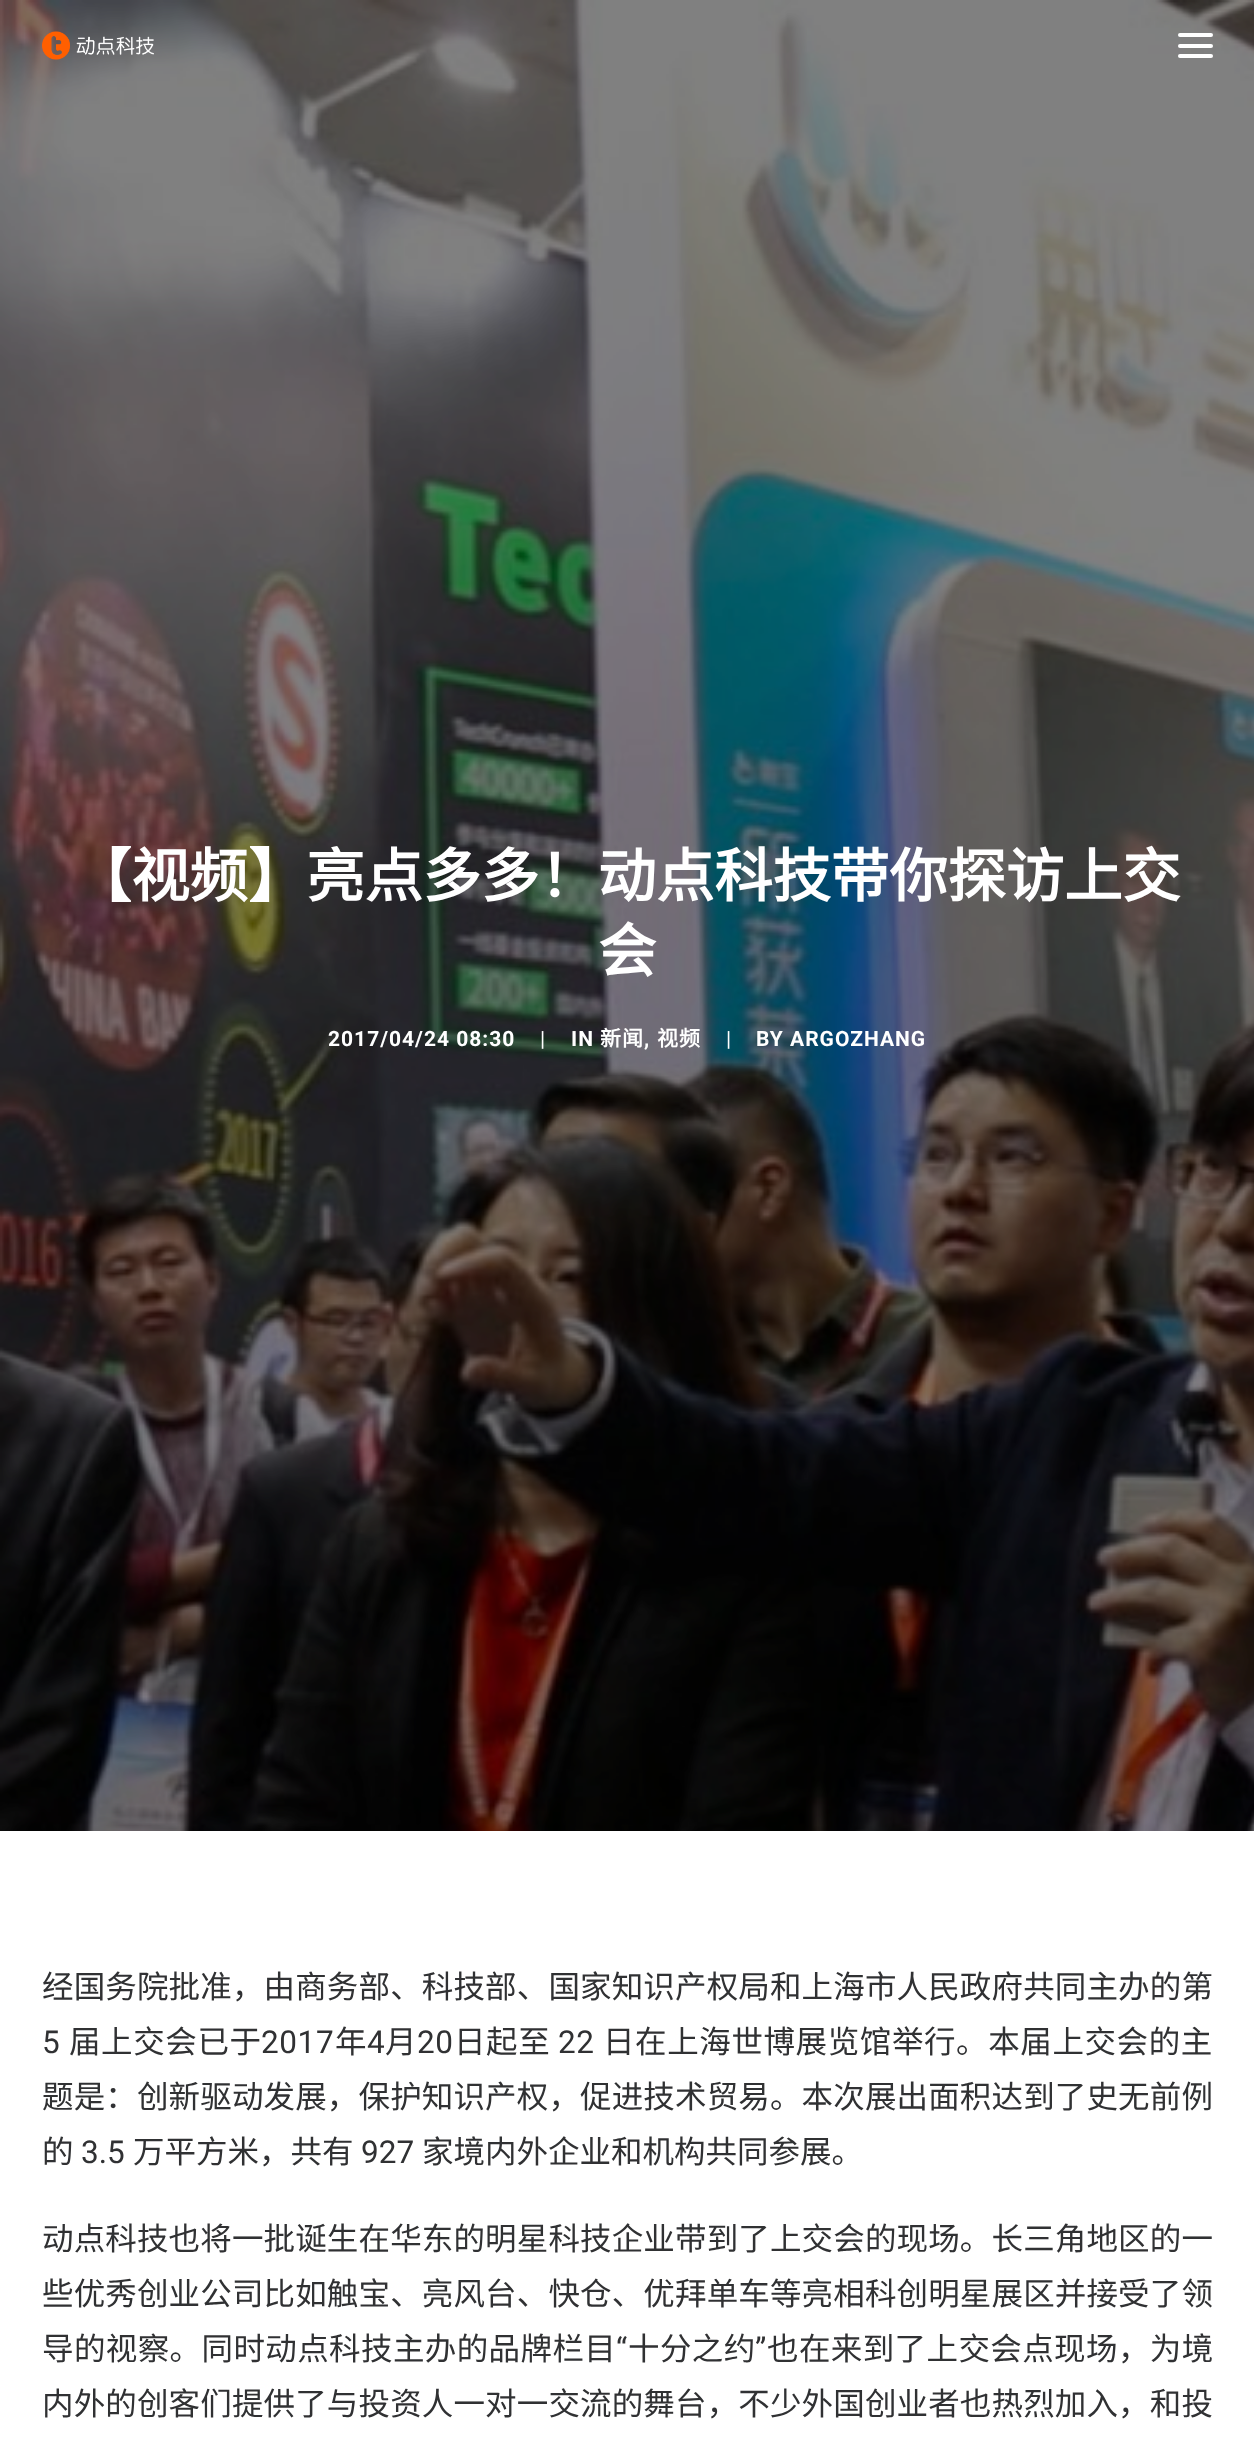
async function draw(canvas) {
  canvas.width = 1254;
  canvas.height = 2441;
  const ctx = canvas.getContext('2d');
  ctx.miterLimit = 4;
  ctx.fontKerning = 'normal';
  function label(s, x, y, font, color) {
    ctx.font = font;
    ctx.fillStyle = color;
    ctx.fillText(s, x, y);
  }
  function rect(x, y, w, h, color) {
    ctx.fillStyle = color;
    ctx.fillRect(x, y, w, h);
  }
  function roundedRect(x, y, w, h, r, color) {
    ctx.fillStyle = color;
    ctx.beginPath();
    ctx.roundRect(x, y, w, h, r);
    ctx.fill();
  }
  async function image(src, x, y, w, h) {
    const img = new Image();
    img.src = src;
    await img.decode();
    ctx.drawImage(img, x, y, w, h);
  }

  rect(0, 0, 1254, 2441, '#fff');
  await image('assets/img2.png', 0, 0, 1254, 1831);
  await image('assets/img1.png', 42, 31, 112, 29);
  roundedRect(1178, 44, 35, 4, 2, '#fff');
  roundedRect(1178, 33, 35, 4, 2, '#fff');
  roundedRect(1178, 54, 35, 4, 2, '#fff');
  label('【视频】亮点多多！动点科技带你探访上交', 73, 897, 'bold 58.3px Noto Sans CJK SC', '#fff');
  label('会', 598, 972, 'bold 58.3px Noto Sans CJK SC', '#fff');
  ctx.letterSpacing = '1px';
  label('2017/04/24 08:30', 328, 1046, 'bold 21px Roboto', '#fff');
  label('|', 540, 1046, '21px Roboto', '#fff');
  label('IN', 571, 1046, 'bold 21px Roboto', '#fff');
  label('新闻', 600, 1046, 'bold 21px Noto Sans CJK SC', '#fff');
  label(',', 644, 1046, 'bold 21px Roboto', '#fff');
  label('视频', 657, 1046, 'bold 21px Noto Sans CJK SC', '#fff');
  label('|', 726, 1046, '21px Roboto', '#fff');
  label('BY ARGOZHANG', 756, 1046, 'bold 21px Roboto', '#fff');
  ctx.letterSpacing = '0.15px';
  label('经国务院批准，由商务部、科技部、国家知识产权局和上海市人民政府共同主办的第', 42, 1998, '31.5px Noto Sans CJK SC', '#303133');
  ctx.letterSpacing = '0.6px';
  label('5', 42, 2053, '31.5px Roboto', '#303133');
  label('届上交会已于', 69, 2053, '31.5px Noto Sans CJK SC', '#303133');
  label('2017', 261, 2053, '31.5px Roboto', '#303133');
  label('年', 335, 2053, '31.5px Noto Sans CJK SC', '#303133');
  label('4', 367, 2053, '31.5px Roboto', '#303133');
  label('月', 385, 2053, '31.5px Noto Sans CJK SC', '#303133');
  label('20', 417, 2053, '31.5px Roboto', '#303133');
  label('日起至', 454, 2053, '31.5px Noto Sans CJK SC', '#303133');
  label('22', 558, 2053, '31.5px Roboto', '#303133');
  label('日在上海世博展览馆举行。本届上交会的主', 603, 2053, '31.5px Noto Sans CJK SC', '#303133');
  ctx.letterSpacing = '0.15px';
  label('题是：创新驱动发展，保护知识产权，促进技术贸易。本次展出面积达到了史无前例', 42, 2108, '31.5px Noto Sans CJK SC', '#303133');
  ctx.letterSpacing = '0px';
  label('的', 42, 2163, '31.5px Noto Sans CJK SC', '#303133');
  label('3.5', 81, 2163, '31.5px Roboto', '#303133');
  label('万平方米，共有', 133, 2163, '31.5px Noto Sans CJK SC', '#303133');
  label('927', 361, 2163, '31.5px Roboto', '#303133');
  label('家境内外企业和机构共同参展。', 422, 2163, '31.5px Noto Sans CJK SC', '#303133');
  ctx.letterSpacing = '0.15px';
  label('动点科技也将一批诞生在华东的明星科技企业带到了上交会的现场。长三角地区的一', 42, 2250, '31.5px Noto Sans CJK SC', '#303133');
  label('些优秀创业公司比如触宝、亮风台、快仓、优拜单车等亮相科创明星展区并接受了领', 42, 2305, '31.5px Noto Sans CJK SC', '#303133');
  ctx.letterSpacing = '0.4px';
  label('导的视察。同时动点科技主办的品牌栏目', 42, 2360, '31.5px Noto Sans CJK SC', '#303133');
  label('“', 616, 2360, '31.5px Roboto', '#303133');
  label('十分之约', 628, 2360, '31.5px Noto Sans CJK SC', '#303133');
  label('”', 755, 2360, '31.5px Roboto', '#303133');
  label('也在来到了上交会点现场，为境', 767, 2360, '31.5px Noto Sans CJK SC', '#303133');
  ctx.letterSpacing = '0.15px';
  label('内外的创客们提供了与投资人一对一交流的舞台，不少外国创业者也热烈加入，和投', 42, 2415, '31.5px Noto Sans CJK SC', '#303133');
}

draw(document.querySelector('canvas'));
